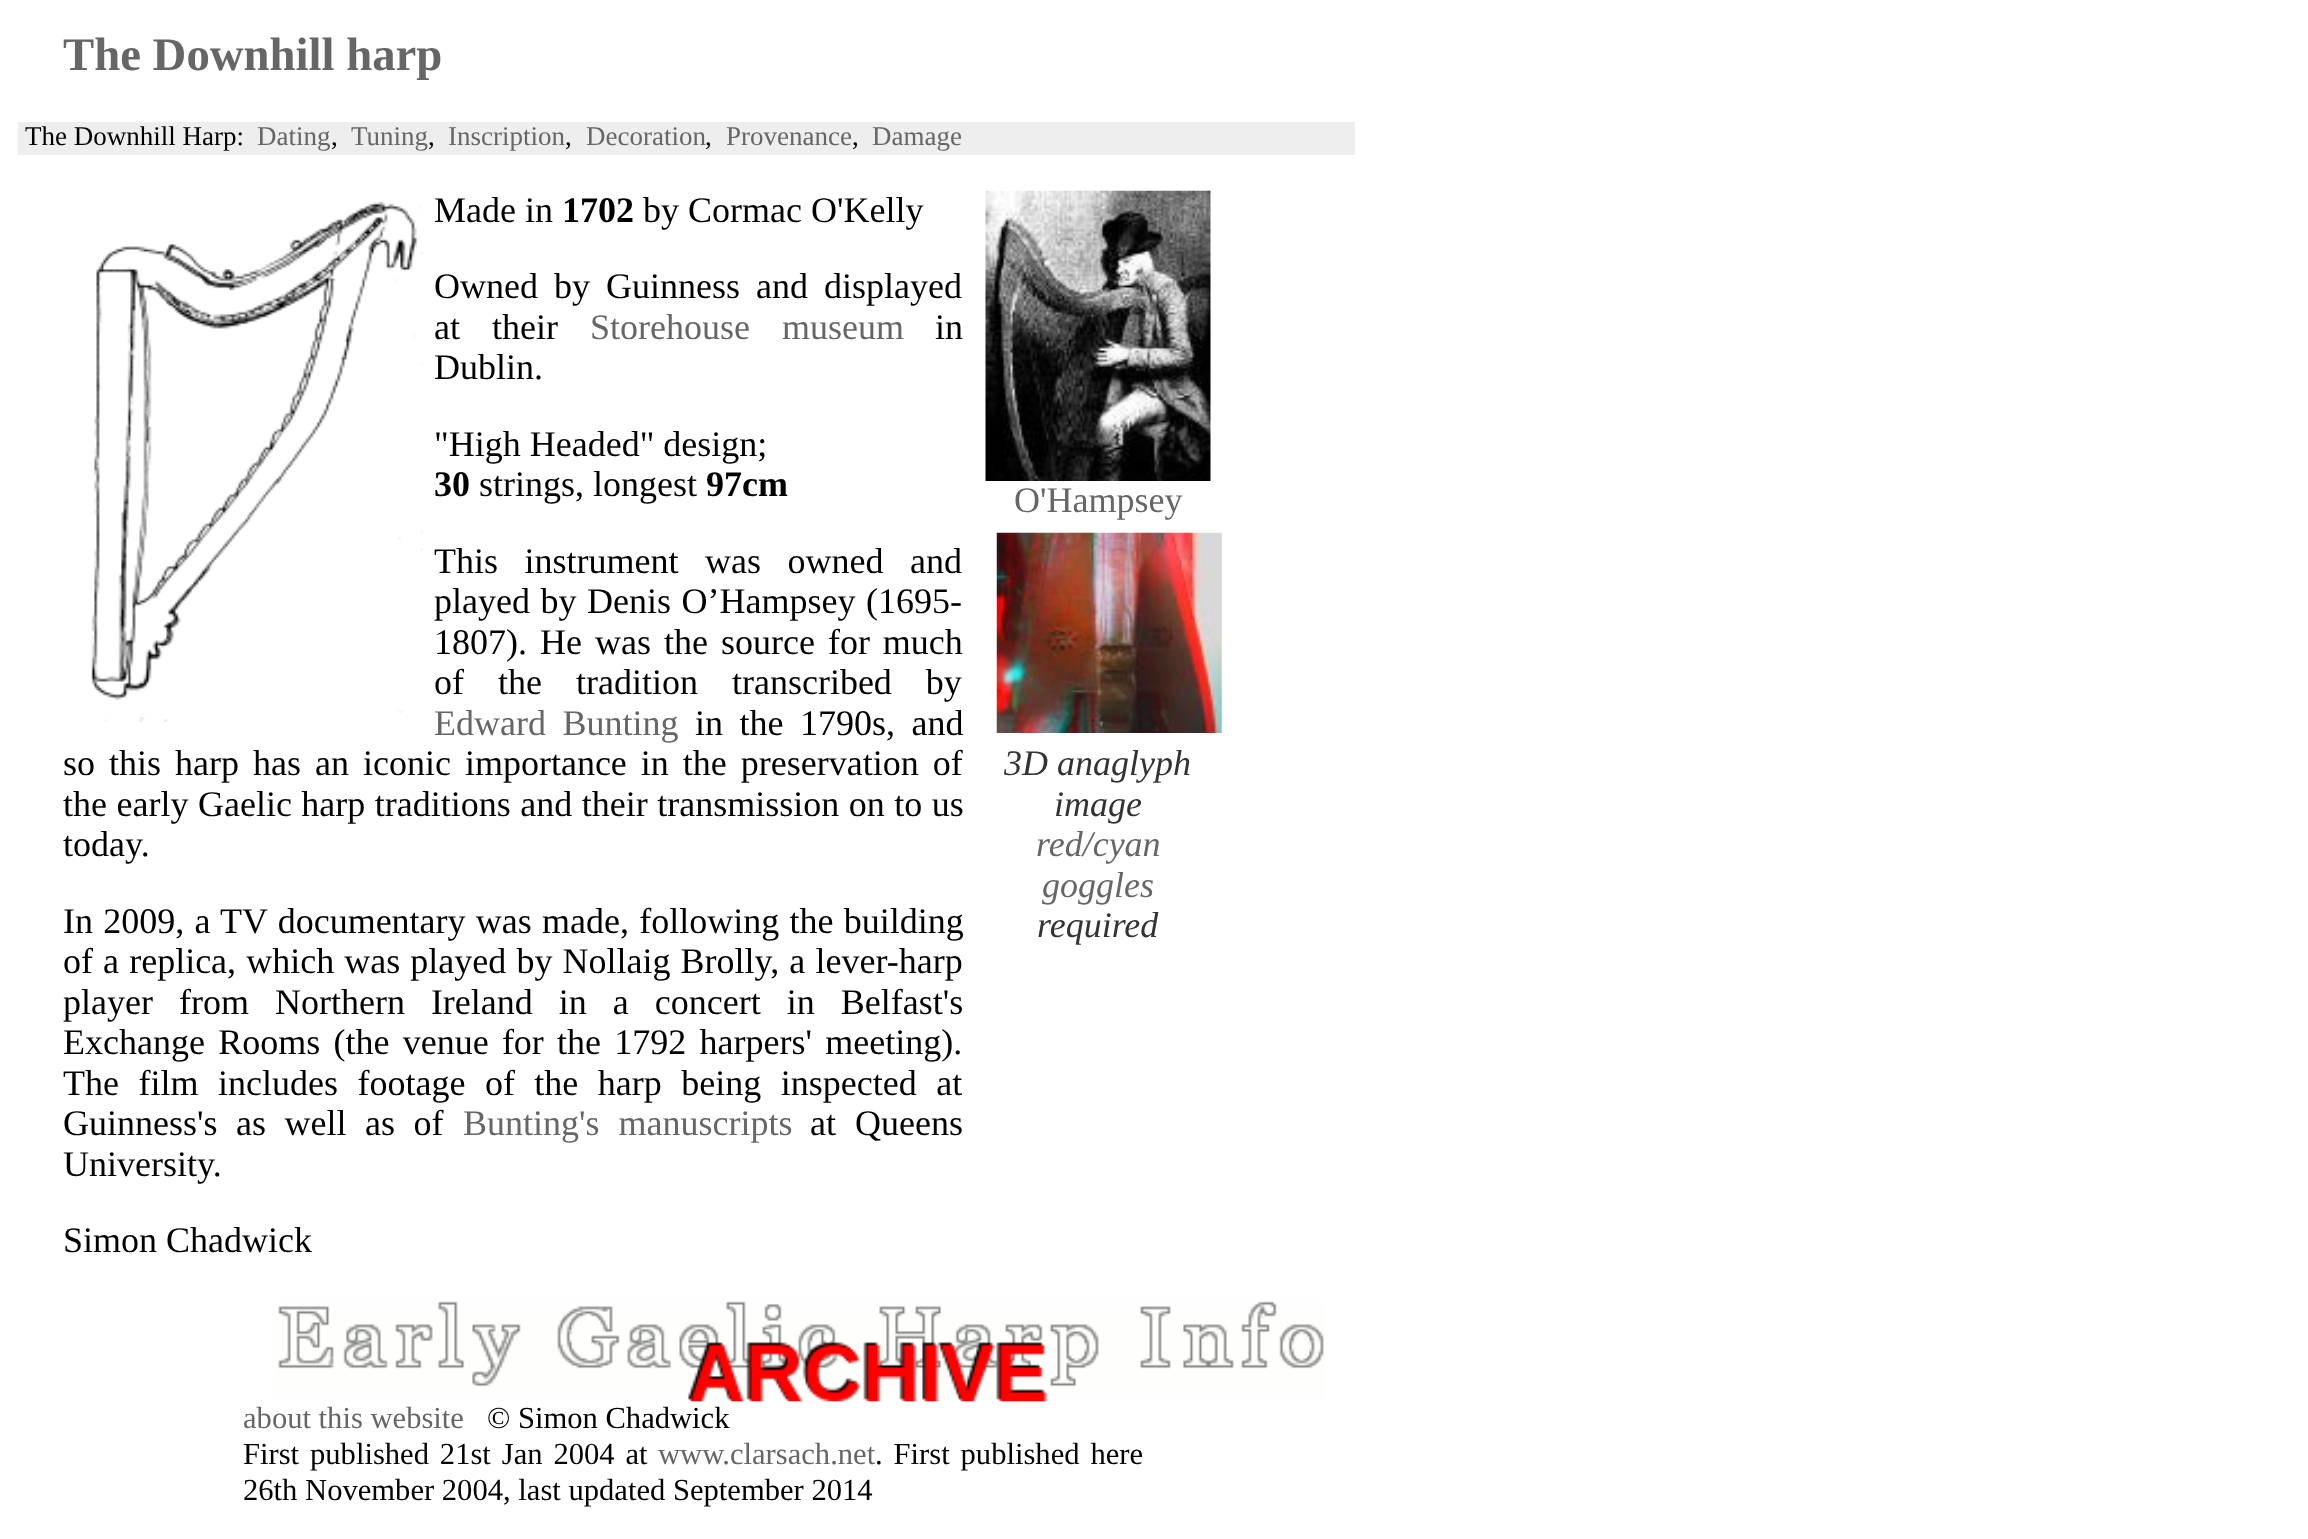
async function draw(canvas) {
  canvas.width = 2308;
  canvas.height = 1539;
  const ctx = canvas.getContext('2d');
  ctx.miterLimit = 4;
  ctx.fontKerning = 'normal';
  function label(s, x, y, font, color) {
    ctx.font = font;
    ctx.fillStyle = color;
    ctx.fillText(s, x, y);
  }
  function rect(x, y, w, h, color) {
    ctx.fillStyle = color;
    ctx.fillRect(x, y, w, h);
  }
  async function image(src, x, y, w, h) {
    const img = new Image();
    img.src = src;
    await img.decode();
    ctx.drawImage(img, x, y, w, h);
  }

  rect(0, 0, 2308, 1539, '#fff');
  label('The Downhill harp', 63, 70, 'bold 46.75px Liberation Serif', '#666');
  rect(18, 122, 1337, 33, '#eee');
  label('The Downhill Harp:', 25, 145, '27px Liberation Serif', '#000');
  label('Dating', 257, 145, '27px Liberation Serif', '#666');
  label(',', 331, 145, '27px Liberation Serif', '#000');
  label('Tuning', 351, 145, '27px Liberation Serif', '#666');
  label(',', 428, 145, '27px Liberation Serif', '#000');
  label('Inscription', 448, 145, '27px Liberation Serif', '#666');
  label(',', 565, 145, '27px Liberation Serif', '#000');
  label('Decoration', 586, 145, '27px Liberation Serif', '#666');
  label(',', 705, 145, '27px Liberation Serif', '#000');
  label('Provenance', 726, 145, '27px Liberation Serif', '#666');
  label(',', 852, 145, '27px Liberation Serif', '#000');
  label('Damage', 872, 145, '27px Liberation Serif', '#666');
  await image('assets/img1.png', 91, 202, 332, 520);
  label('Made in', 434, 222, '36px Liberation Serif', '#000');
  label('1702', 562, 222, 'bold 36px Liberation Serif', '#000');
  label('by Cormac O\'Kelly', 643, 222, '36px Liberation Serif', '#000');
  ctx.wordSpacing = '7px';
  label('Owned by Guinness and displayed', 434, 298, '36px Liberation Serif', '#000');
  ctx.wordSpacing = '23px';
  label('at their', 434, 339, '36px Liberation Serif', '#000');
  label('Storehouse museum', 590, 339, '36px Liberation Serif', '#666');
  ctx.wordSpacing = '0px';
  label('in', 935, 339, '36px Liberation Serif', '#000');
  label('Dublin.', 434, 379, '36px Liberation Serif', '#000');
  label('"High Headed" design;', 434, 456, '36px Liberation Serif', '#000');
  label('30', 434, 496, 'bold 36px Liberation Serif', '#000');
  label('strings, longest', 479, 496, '36px Liberation Serif', '#000');
  label('97cm', 706, 496, 'bold 36px Liberation Serif', '#000');
  ctx.wordSpacing = '17.5px';
  label('This instrument was owned and', 434, 573, '36px Liberation Serif', '#000');
  ctx.wordSpacing = '1.5px';
  label('played by Denis O’Hampsey (1695-', 434, 613, '36px Liberation Serif', '#000');
  ctx.wordSpacing = '4px';
  label('1807). He was the source for much', 434, 654, '36px Liberation Serif', '#000');
  ctx.wordSpacing = '25px';
  label('of the tradition transcribed by', 434, 694, '36px Liberation Serif', '#000');
  ctx.wordSpacing = '7.5px';
  label('Edward Bunting', 434, 735, '36px Liberation Serif', '#666');
  label('in the 1790s, and', 695, 735, '36px Liberation Serif', '#000');
  ctx.wordSpacing = '5px';
  label('so this harp has an iconic importance in the preservation of', 63, 775, '36px Liberation Serif', '#000');
  ctx.wordSpacing = '0.5px';
  label('the early Gaelic harp traditions and their transmission on to us', 63, 816, '36px Liberation Serif', '#000');
  ctx.wordSpacing = '0px';
  label('today.', 63, 856, '36px Liberation Serif', '#000');
  await image('assets/img2.png', 985, 190, 226, 291);
  label('O\'Hampsey', 1014, 512, '36px Liberation Serif', '#666');
  await image('assets/img3.png', 996, 532, 226, 201);
  label('3D anaglyph', 1004, 775, 'italic 36px Liberation Serif', '#333');
  label('image', 1054, 816, 'italic 36px Liberation Serif', '#333');
  label('red/cyan', 1036, 856, 'italic 36px Liberation Serif', '#666');
  label('goggles', 1042, 897, 'italic 36px Liberation Serif', '#666');
  label('required', 1037, 937, 'italic 36px Liberation Serif', '#333');
  ctx.wordSpacing = '1.25px';
  label('In 2009, a TV documentary was made, following the building', 63, 933, '36px Liberation Serif', '#000');
  ctx.wordSpacing = '1.1px';
  label('of a replica, which was played by Nollaig Brolly, a lever-harp', 63, 973, '36px Liberation Serif', '#000');
  ctx.wordSpacing = '17px';
  label('player from Northern Ireland in a concert in Belfast\'s', 63, 1014, '36px Liberation Serif', '#000');
  ctx.wordSpacing = '4.25px';
  label('Exchange Rooms (the venue for the 1792 harpers\' meeting).', 63, 1054, '36px Liberation Serif', '#000');
  ctx.wordSpacing = '10.5px';
  label('The film includes footage of the harp being inspected at', 63, 1095, '36px Liberation Serif', '#000');
  ctx.wordSpacing = '9.5px';
  label('Guinness\'s as well as of', 63, 1135, '36px Liberation Serif', '#000');
  ctx.wordSpacing = '10px';
  label('Bunting\'s manuscripts', 463, 1135, '36px Liberation Serif', '#666');
  label('at Queens', 810, 1135, '36px Liberation Serif', '#000');
  ctx.wordSpacing = '0px';
  label('University.', 63, 1176, '36px Liberation Serif', '#000');
  label('Simon Chadwick', 63, 1252, '36px Liberation Serif', '#000');
  await image('assets/img4.png', 278, 1301, 1046, 101);
  label('about this website', 243, 1428, '30.6px Liberation Serif', '#666');
  label('© Simon Chadwick', 487, 1428, '30.6px Liberation Serif', '#000');
  ctx.wordSpacing = '3.25px';
  label('First published 21st Jan 2004 at', 243, 1464, '30.6px Liberation Serif', '#000');
  ctx.wordSpacing = '0px';
  label('www.clarsach.net', 658, 1464, '30.6px Liberation Serif', '#666');
  ctx.wordSpacing = '3.25px';
  label('. First published here', 875, 1464, '30.6px Liberation Serif', '#000');
  ctx.wordSpacing = '0px';
  label('26th November 2004, last updated September 2014', 243, 1500, '30.6px Liberation Serif', '#000');
}

draw(document.querySelector('canvas'));
